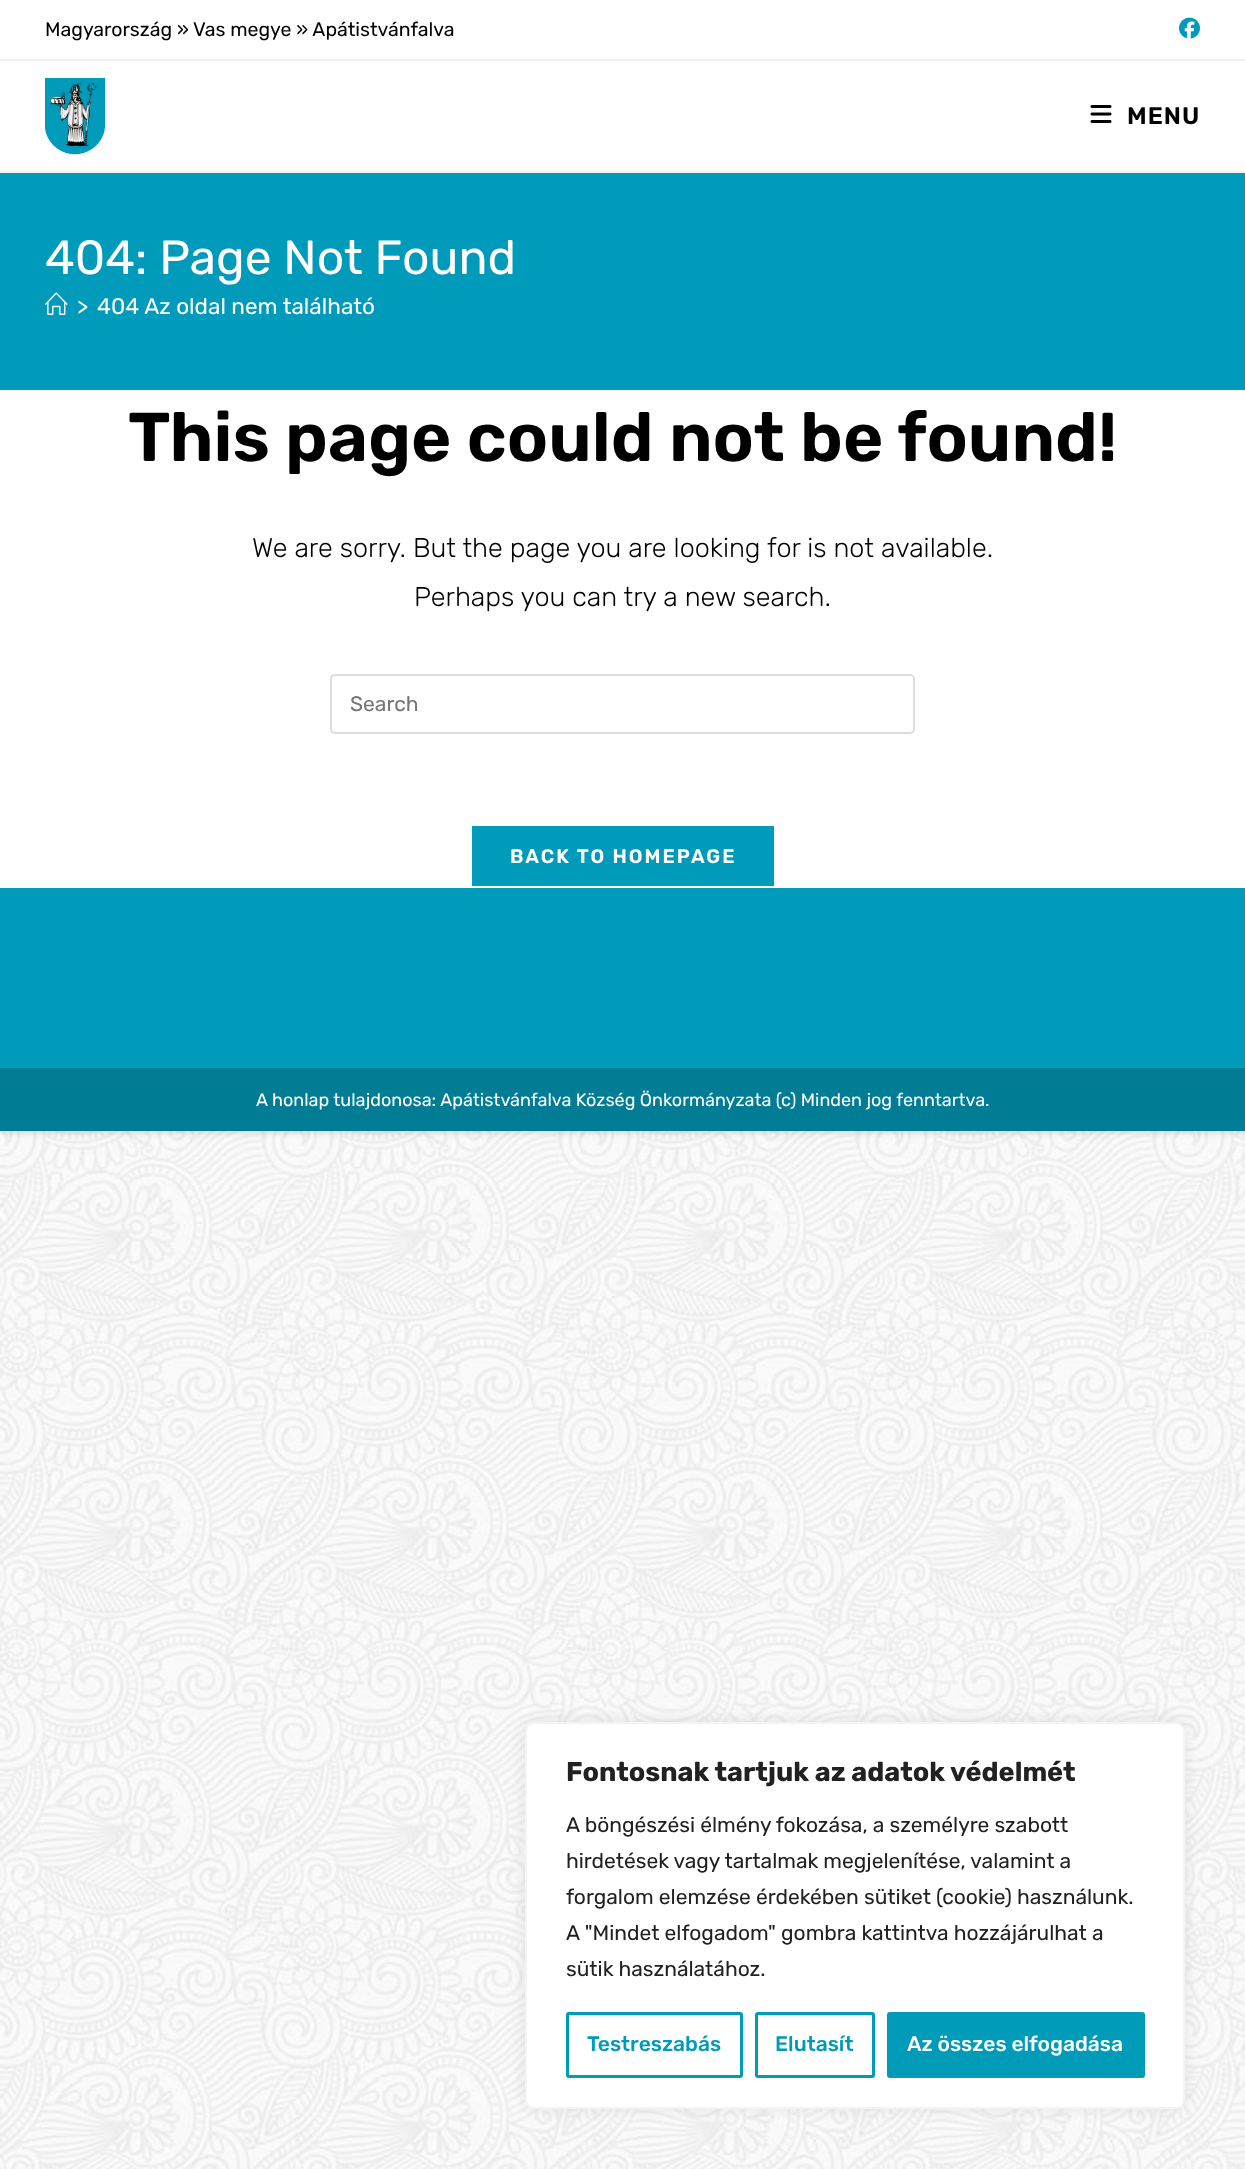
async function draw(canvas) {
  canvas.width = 1245;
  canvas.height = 2169;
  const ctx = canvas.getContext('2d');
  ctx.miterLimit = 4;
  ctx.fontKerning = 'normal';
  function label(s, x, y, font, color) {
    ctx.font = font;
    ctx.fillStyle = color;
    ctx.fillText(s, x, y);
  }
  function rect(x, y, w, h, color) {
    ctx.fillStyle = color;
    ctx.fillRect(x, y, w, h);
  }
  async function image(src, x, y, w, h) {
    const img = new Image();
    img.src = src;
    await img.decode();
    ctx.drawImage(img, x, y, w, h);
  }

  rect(0, 0, 1245, 2169, '#fff');
  await image('assets/img1.png', 0, 1131, 1245, 1038);
  ctx.fillStyle = '#00000026';
  ctx.filter = 'blur(3px)';
  ctx.beginPath();
  ctx.rect(0, 2, 1245, 1131);
  ctx.fill();
  ctx.filter = 'none';
  rect(0, 0, 1245, 888, '#fff');
  rect(0, 59, 1245, 2, '#f1f1f1');
  label('Magyarország » Vas megye » Apátistvánfalva', 45, 36, '19.5px Rubik', '#000');
  await image('assets/img2.png', 1179, 17, 21, 22);
  rect(0, 171, 1245, 2, '#f1f1f1');
  await image('assets/img3.png', 45, 78, 60, 77);
  await image('assets/img4.png', 1090, 105, 22, 18);
  ctx.letterSpacing = '1px';
  label('MENU', 1127, 124, '600 24px Rubik', '#000');
  rect(0, 173, 1245, 217, '#009bba');
  ctx.letterSpacing = '0px';
  label('404: Page Not Found', 45, 274, '48px Rubik', '#fff');
  await image('assets/img5.png', 45, 292, 23, 23);
  label('>', 77, 314, '22.5px Rubik', '#fff');
  label('404 Az oldal nem található', 97, 314, '22.5px Rubik', '#fff');
  label('This page could not be found!', 128, 461, '600 69px Rubik', '#000');
  label('We are sorry. But the page you are looking for is not available.', 252, 557, '300 27px Rubik', '#000');
  label('Perhaps you can try a new search.', 414, 606, '300 27px Rubik', '#000');
  ctx.beginPath();
  ctx.roundRect(331, 675, 583, 58, 4);
  ctx.strokeStyle = '#ddd';
  ctx.lineWidth = 2;
  ctx.stroke();
  label('Search', 350, 711, '21px Rubik', '#757575');
  rect(472, 826, 302, 60, '#009bba');
  ctx.letterSpacing = '2px';
  label('BACK TO HOMEPAGE', 510, 863, '600 19.5px Rubik', '#fff');
  rect(0, 888, 1245, 180, '#009bba');
  rect(0, 1068, 1245, 63, '#007c94');
  ctx.letterSpacing = '0px';
  label('A honlap tulajdonosa: Apátistvánfalva Község Önkormányzata (c) Minden jog fenntartva.', 256, 1106, '18px Rubik', '#fff');
  ctx.fillStyle = '#acabab4d';
  ctx.filter = 'blur(7.5px)';
  ctx.beginPath();
  ctx.roundRect(525, 1721, 660, 387, 9);
  ctx.fill();
  ctx.filter = 'none';
  ctx.fillStyle = '#fff';
  ctx.beginPath();
  ctx.roundRect(526, 1723, 658, 385, 8);
  ctx.fill();
  ctx.strokeStyle = '#f4f4f4';
  ctx.stroke();
  label('Fontosnak tartjuk az adatok védelmét', 566, 1781, 'bold 27px Rubik', '#212121');
  label('A böngészési élmény fokozása, a személyre szabott', 566, 1832, '21px Rubik', '#212121');
  label('hirdetések vagy tartalmak megjelenítése, valamint a', 566, 1868, '21px Rubik', '#212121');
  label('forgalom elemzése érdekében sütiket (cookie) használunk.', 566, 1904, '21px Rubik', '#212121');
  label('A "Mindet elfogadom" gombra kattintva hozzájárulhat a', 566, 1940, '21px Rubik', '#212121');
  label('sütik használatához.', 566, 1976, '21px Rubik', '#212121');
  ctx.beginPath();
  ctx.roundRect(567.5, 2013.5, 174, 63, 1.5);
  ctx.strokeStyle = '#009bb9';
  ctx.lineWidth = 3;
  ctx.stroke();
  label('Testreszabás', 587, 2051, '500 21px Rubik', '#009bb9');
  ctx.beginPath();
  ctx.roundRect(756.5, 2013.5, 117, 63, 1.5);
  ctx.stroke();
  label('Elutasít', 775, 2051, '500 21px Rubik', '#009bb9');
  ctx.beginPath();
  ctx.roundRect(888.5, 2013.5, 255, 63, 1.5);
  ctx.fill();
  ctx.stroke();
  label('Az összes elfogadása', 907, 2051, '500 21px Rubik', '#fff');
}

draw(document.querySelector('canvas'));
